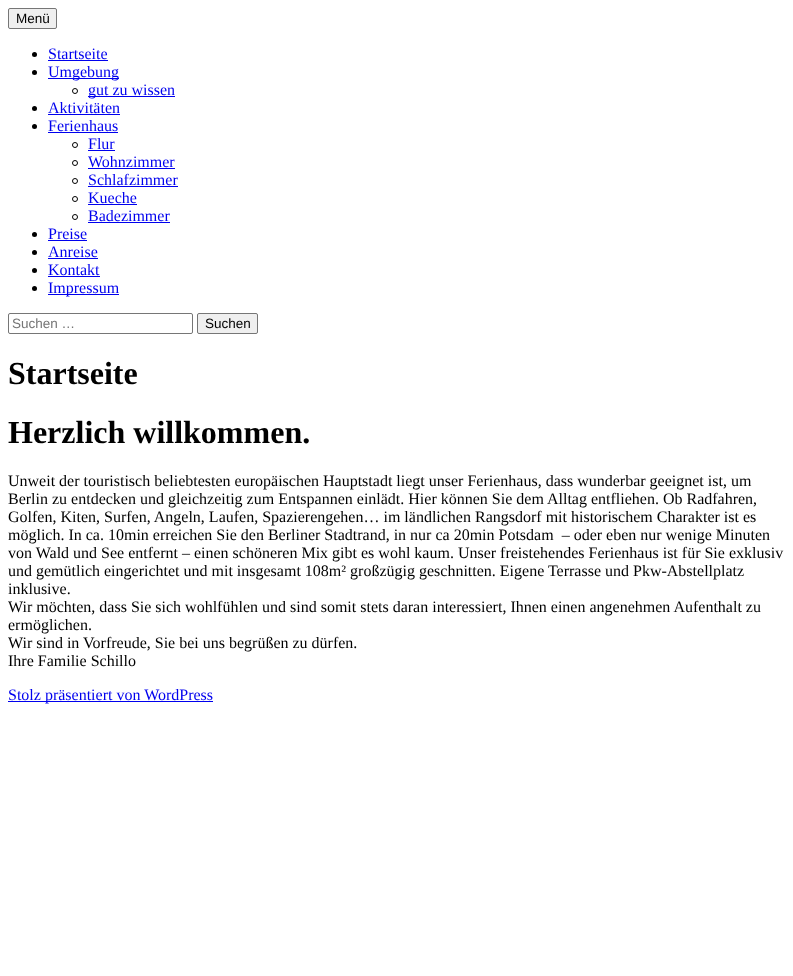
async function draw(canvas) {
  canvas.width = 793;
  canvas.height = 976;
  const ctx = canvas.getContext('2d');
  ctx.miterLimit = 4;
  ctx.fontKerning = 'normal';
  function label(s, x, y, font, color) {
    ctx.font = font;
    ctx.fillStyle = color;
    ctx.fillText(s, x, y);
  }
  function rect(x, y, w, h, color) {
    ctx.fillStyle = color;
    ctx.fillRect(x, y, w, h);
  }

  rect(0, 0, 793, 976, '#fff');
  ctx.fillStyle = '#efefef';
  ctx.beginPath();
  ctx.roundRect(8.5, 8.5, 48, 20, 1.5);
  ctx.fill();
  ctx.strokeStyle = '#767676';
  ctx.stroke();
  label('Menü', 16, 23, '13.5px Liberation Sans', '#000');
  ctx.beginPath();
  ctx.arc(34.5, 54.5, 2.5, 0, 2 * Math.PI);
  ctx.fill();
  label('Startseite', 48, 59, '16px Liberation Serif', '#00e');
  rect(48, 60, 60, 1, '#00e');
  ctx.fillStyle = '#000';
  ctx.beginPath();
  ctx.arc(34.5, 72.5, 2.5, 0, 2 * Math.PI);
  ctx.fill();
  rect(48, 78, 71, 1, '#00e');
  label('Umgebung', 48, 77, '16px Liberation Serif', '#00e');
  ctx.beginPath();
  ctx.arc(75, 91, 2.5, 0, 2 * Math.PI);
  ctx.strokeStyle = '#000';
  ctx.stroke();
  rect(88, 96, 87, 1, '#00e');
  label('gut zu wissen', 88, 95, '16px Liberation Serif', '#00e');
  ctx.fillStyle = '#000';
  ctx.beginPath();
  ctx.arc(34.5, 108.5, 2.5, 0, 2 * Math.PI);
  ctx.fill();
  label('Aktivitäten', 48, 113, '16px Liberation Serif', '#00e');
  rect(48, 114, 72, 1, '#00e');
  ctx.fillStyle = '#000';
  ctx.beginPath();
  ctx.arc(34.5, 126.5, 2.5, 0, 2 * Math.PI);
  ctx.fill();
  label('Ferienhaus', 48, 131, '16px Liberation Serif', '#00e');
  rect(48, 132, 70, 1, '#00e');
  ctx.beginPath();
  ctx.arc(75, 145, 2.5, 0, 2 * Math.PI);
  ctx.stroke();
  label('Flur', 88, 149, '16px Liberation Serif', '#00e');
  rect(88, 150, 27, 1, '#00e');
  ctx.beginPath();
  ctx.arc(75, 163, 2.5, 0, 2 * Math.PI);
  ctx.stroke();
  label('Wohnzimmer', 88, 167, '16px Liberation Serif', '#00e');
  rect(88, 168, 87, 1, '#00e');
  ctx.beginPath();
  ctx.arc(75, 181, 2.5, 0, 2 * Math.PI);
  ctx.stroke();
  label('Schlafzimmer', 88, 185, '16px Liberation Serif', '#00e');
  rect(88, 186, 90, 1, '#00e');
  ctx.beginPath();
  ctx.arc(75, 199, 2.5, 0, 2 * Math.PI);
  ctx.stroke();
  label('Kueche', 88, 203, '16px Liberation Serif', '#00e');
  rect(88, 204, 49, 1, '#00e');
  ctx.beginPath();
  ctx.arc(75, 217, 2.5, 0, 2 * Math.PI);
  ctx.stroke();
  label('Badezimmer', 88, 221, '16px Liberation Serif', '#00e');
  rect(88, 222, 82, 1, '#00e');
  ctx.fillStyle = '#000';
  ctx.beginPath();
  ctx.arc(34.5, 234.5, 2.5, 0, 2 * Math.PI);
  ctx.fill();
  label('Preise', 48, 239, '16px Liberation Serif', '#00e');
  rect(48, 240, 39, 1, '#00e');
  ctx.fillStyle = '#000';
  ctx.beginPath();
  ctx.arc(34.5, 252.5, 2.5, 0, 2 * Math.PI);
  ctx.fill();
  label('Anreise', 48, 257, '16px Liberation Serif', '#00e');
  rect(48, 258, 50, 1, '#00e');
  ctx.fillStyle = '#000';
  ctx.beginPath();
  ctx.arc(34.5, 270.5, 2.5, 0, 2 * Math.PI);
  ctx.fill();
  label('Kontakt', 48, 275, '16px Liberation Serif', '#00e');
  rect(48, 276, 52, 1, '#00e');
  ctx.fillStyle = '#000';
  ctx.beginPath();
  ctx.arc(34.5, 288.5, 2.5, 0, 2 * Math.PI);
  ctx.fill();
  rect(48, 294, 71, 1, '#00e');
  label('Impressum', 48, 293, '16px Liberation Serif', '#00e');
  ctx.beginPath();
  ctx.roundRect(8.5, 313.5, 184, 20, 1.5);
  ctx.strokeStyle = '#767676';
  ctx.stroke();
  label('Suchen …', 12, 328, '13.5px Liberation Sans', '#757575');
  ctx.fillStyle = '#efefef';
  ctx.beginPath();
  ctx.roundRect(197.5, 313.5, 60, 20, 1.5);
  ctx.fill();
  ctx.stroke();
  label('Suchen', 205, 328, '13.5px Liberation Sans', '#000');
  label('Startseite', 8, 384, 'bold 32px Liberation Serif', '#000');
  label('Herzlich willkommen.', 8, 443, 'bold 32px Liberation Serif', '#000');
  label('Unweit der touristisch beliebtesten europäischen Hauptstadt liegt unser Ferienhaus, dass wunderbar geeignet ist, um', 8, 486, '16px Liberation Serif', '#000');
  label('Berlin zu entdecken und gleichzeitig zum Entspannen einlädt. Hier können Sie dem Alltag entfliehen. Ob Radfahren,', 8, 504, '16px Liberation Serif', '#000');
  label('Golfen, Kiten, Surfen, Angeln, Laufen, Spazierengehen… im ländlichen Rangsdorf mit historischem Charakter ist es', 8, 522, '16px Liberation Serif', '#000');
  label('möglich. In ca. 10min erreichen Sie den Berliner Stadtrand, in nur ca 20min Potsdam  – oder eben nur wenige Minuten', 8, 540, '16px Liberation Serif', '#000');
  label('von Wald und See entfernt – einen schöneren Mix gibt es wohl kaum. Unser freistehendes Ferienhaus ist für Sie exklusiv', 8, 558, '16px Liberation Serif', '#000');
  label('und gemütlich eingerichtet und mit insgesamt 108m² großzügig geschnitten. Eigene Terrasse und Pkw-Abstellplatz', 8, 576, '16px Liberation Serif', '#000');
  label('inklusive.', 8, 594, '16px Liberation Serif', '#000');
  label('Wir möchten, dass Sie sich wohlfühlen und sind somit stets daran interessiert, Ihnen einen angenehmen Aufenthalt zu', 8, 612, '16px Liberation Serif', '#000');
  label('ermöglichen.', 8, 630, '16px Liberation Serif', '#000');
  label('Wir sind in Vorfreude, Sie bei uns begrüßen zu dürfen.', 8, 648, '16px Liberation Serif', '#000');
  label('Ihre Familie Schillo', 8, 666, '16px Liberation Serif', '#000');
  rect(8, 701, 205, 1, '#00e');
  label('Stolz präsentiert von WordPress', 8, 700, '16px Liberation Serif', '#00e');
}

draw(document.querySelector('canvas'));
